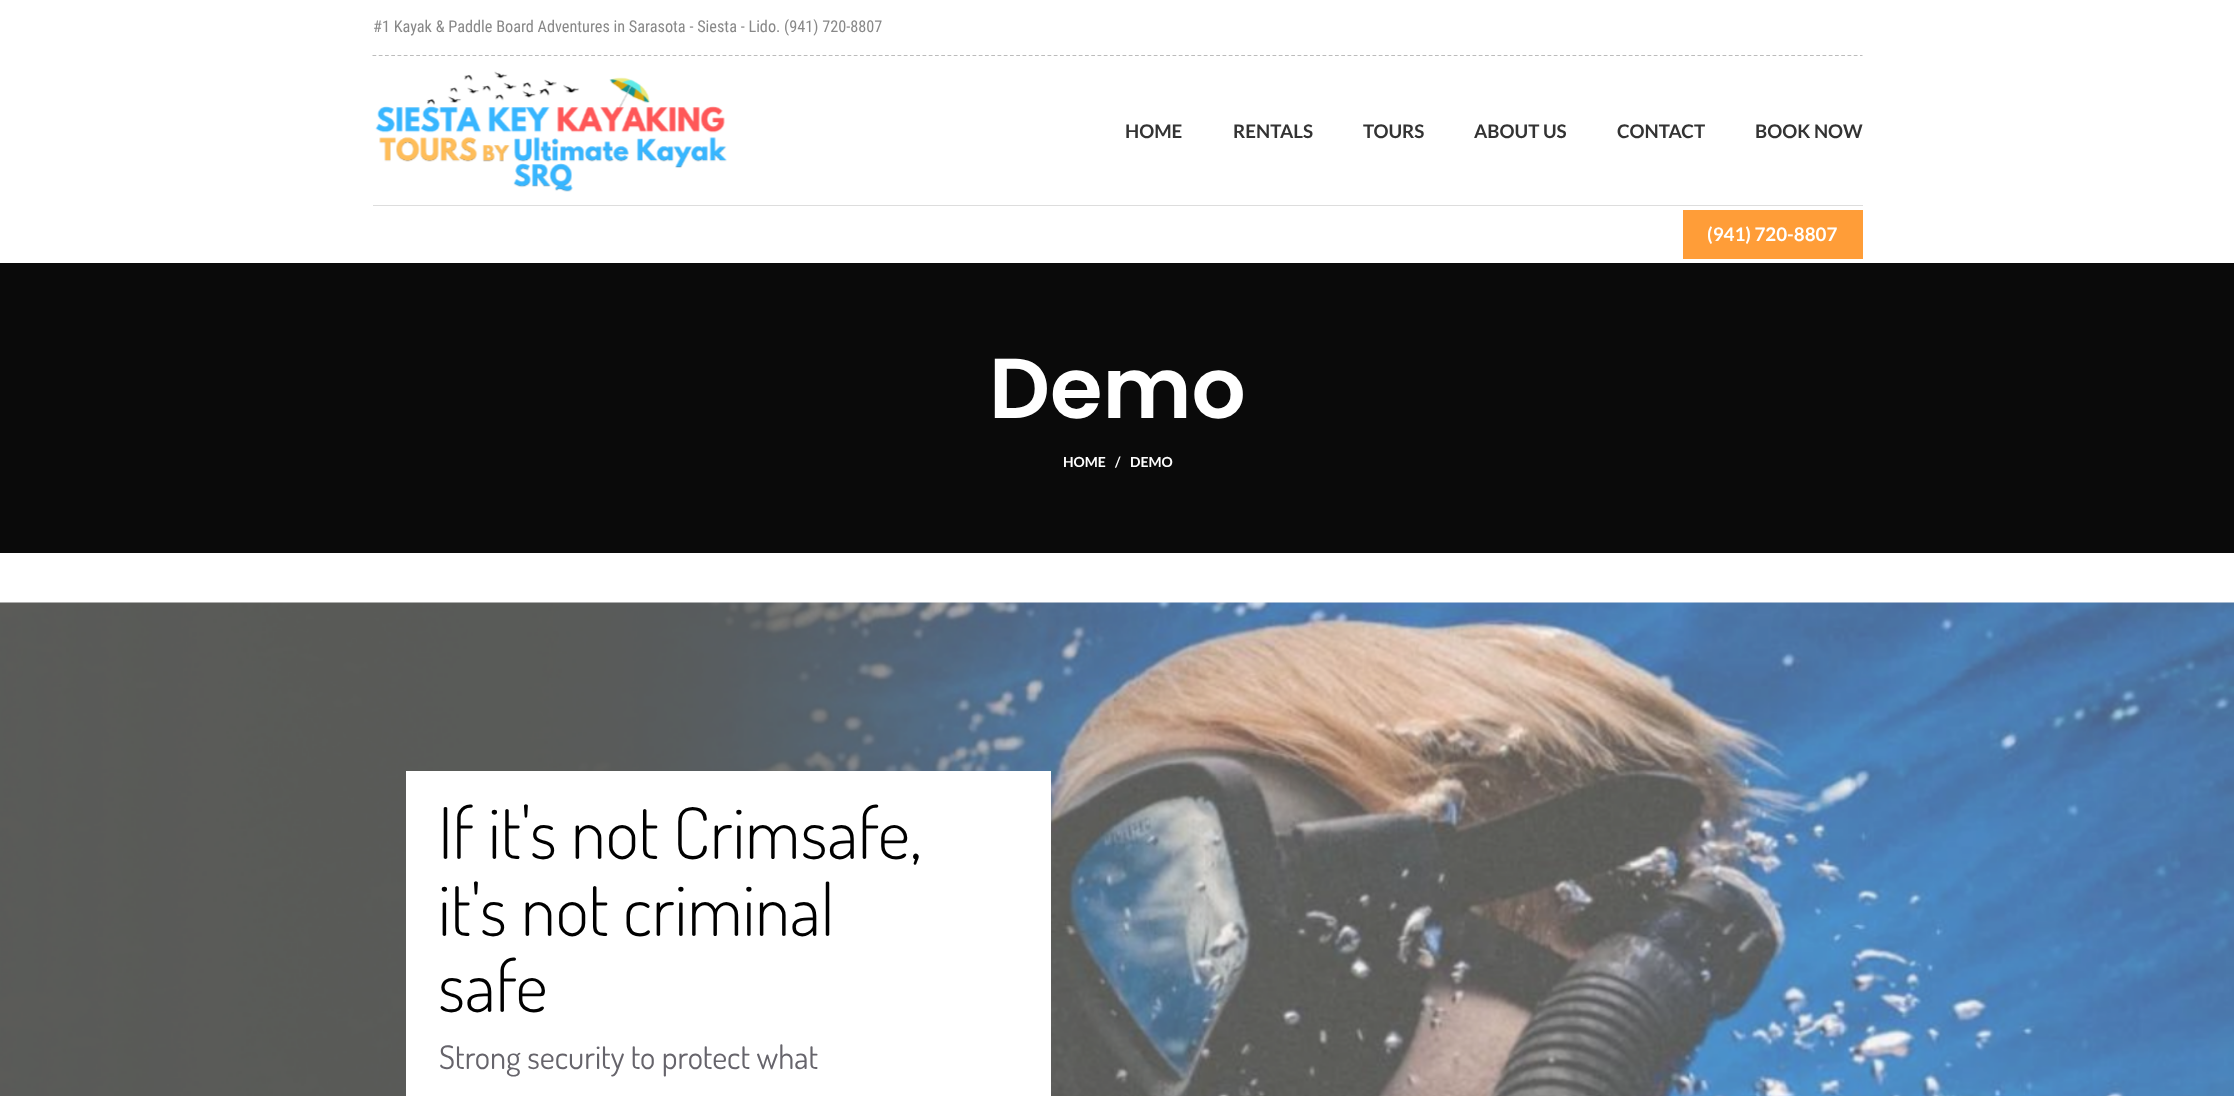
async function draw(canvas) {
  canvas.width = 2234;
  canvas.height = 1096;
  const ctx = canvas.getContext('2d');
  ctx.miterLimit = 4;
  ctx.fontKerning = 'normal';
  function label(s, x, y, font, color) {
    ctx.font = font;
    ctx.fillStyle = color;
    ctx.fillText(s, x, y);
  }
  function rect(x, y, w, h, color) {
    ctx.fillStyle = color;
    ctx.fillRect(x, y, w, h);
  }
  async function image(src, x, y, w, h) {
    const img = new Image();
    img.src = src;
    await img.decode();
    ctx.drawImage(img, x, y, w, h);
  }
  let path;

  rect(0, 0, 2234, 1096, '#fff');
  path = new Path2D('M372.5 55.5H1862.5');
  ctx.strokeStyle = '#bcbcbc';
  ctx.lineWidth = 1.2;
  ctx.setLineDash([3.75, 2.5]);
  ctx.stroke(path);
  label('#1 Kayak & Paddle Board Adventures in Sarasota - Siesta - Lido. (941) 720-8807', 373, 32, '16.25px Roboto Condensed', '#888');
  rect(372, 56, 1491, 1, '#fff');
  rect(373, 205, 1490, 1, '#ddd');
  await image('assets/img1.png', 375, 71, 352, 121);
  label('HOME', 1125, 138, 'bold 18.75px Lato', '#333');
  label('RENTALS', 1233, 138, 'bold 18.75px Lato', '#333');
  label('TOURS', 1363, 138, 'bold 18.75px Lato', '#333');
  label('ABOUT US', 1474, 138, 'bold 18.75px Lato', '#333');
  label('CONTACT', 1617, 138, 'bold 18.75px Lato', '#333');
  label('BOOK NOW', 1755, 138, 'bold 18.75px Lato', '#333');
  rect(1683, 210, 180, 49, '#ff9d38');
  label('(941) 720-8807', 1707, 241, 'bold 18.75px Lato', '#fff');
  rect(0, 263, 2234, 290, '#0a0a0a');
  label('Demo', 989, 418, '600 85px Poppins', '#fff');
  label('HOME', 1063, 467, 'bold 14px Lato', '#fff');
  label('/', 1115, 467, 'bold 14px Lato', '#fff');
  label('DEMO', 1130, 467, 'bold 14px Lato', '#fff');
  await image('assets/img2.png', 0, 602, 2234, 494);
  rect(406, 771, 645, 325, '#fff');
  label('If it\'s not Crimsafe,', 438, 859, '300 71.25px Dosis', '#000');
  label('it\'s not criminal', 438, 936, '300 71.25px Dosis', '#000');
  label('safe', 438, 1012, '300 71.25px Dosis', '#000');
  label('Strong security to protect what', 439, 1069, '32.5px Dosis', '#66646b');
}

draw(document.querySelector('canvas'));
